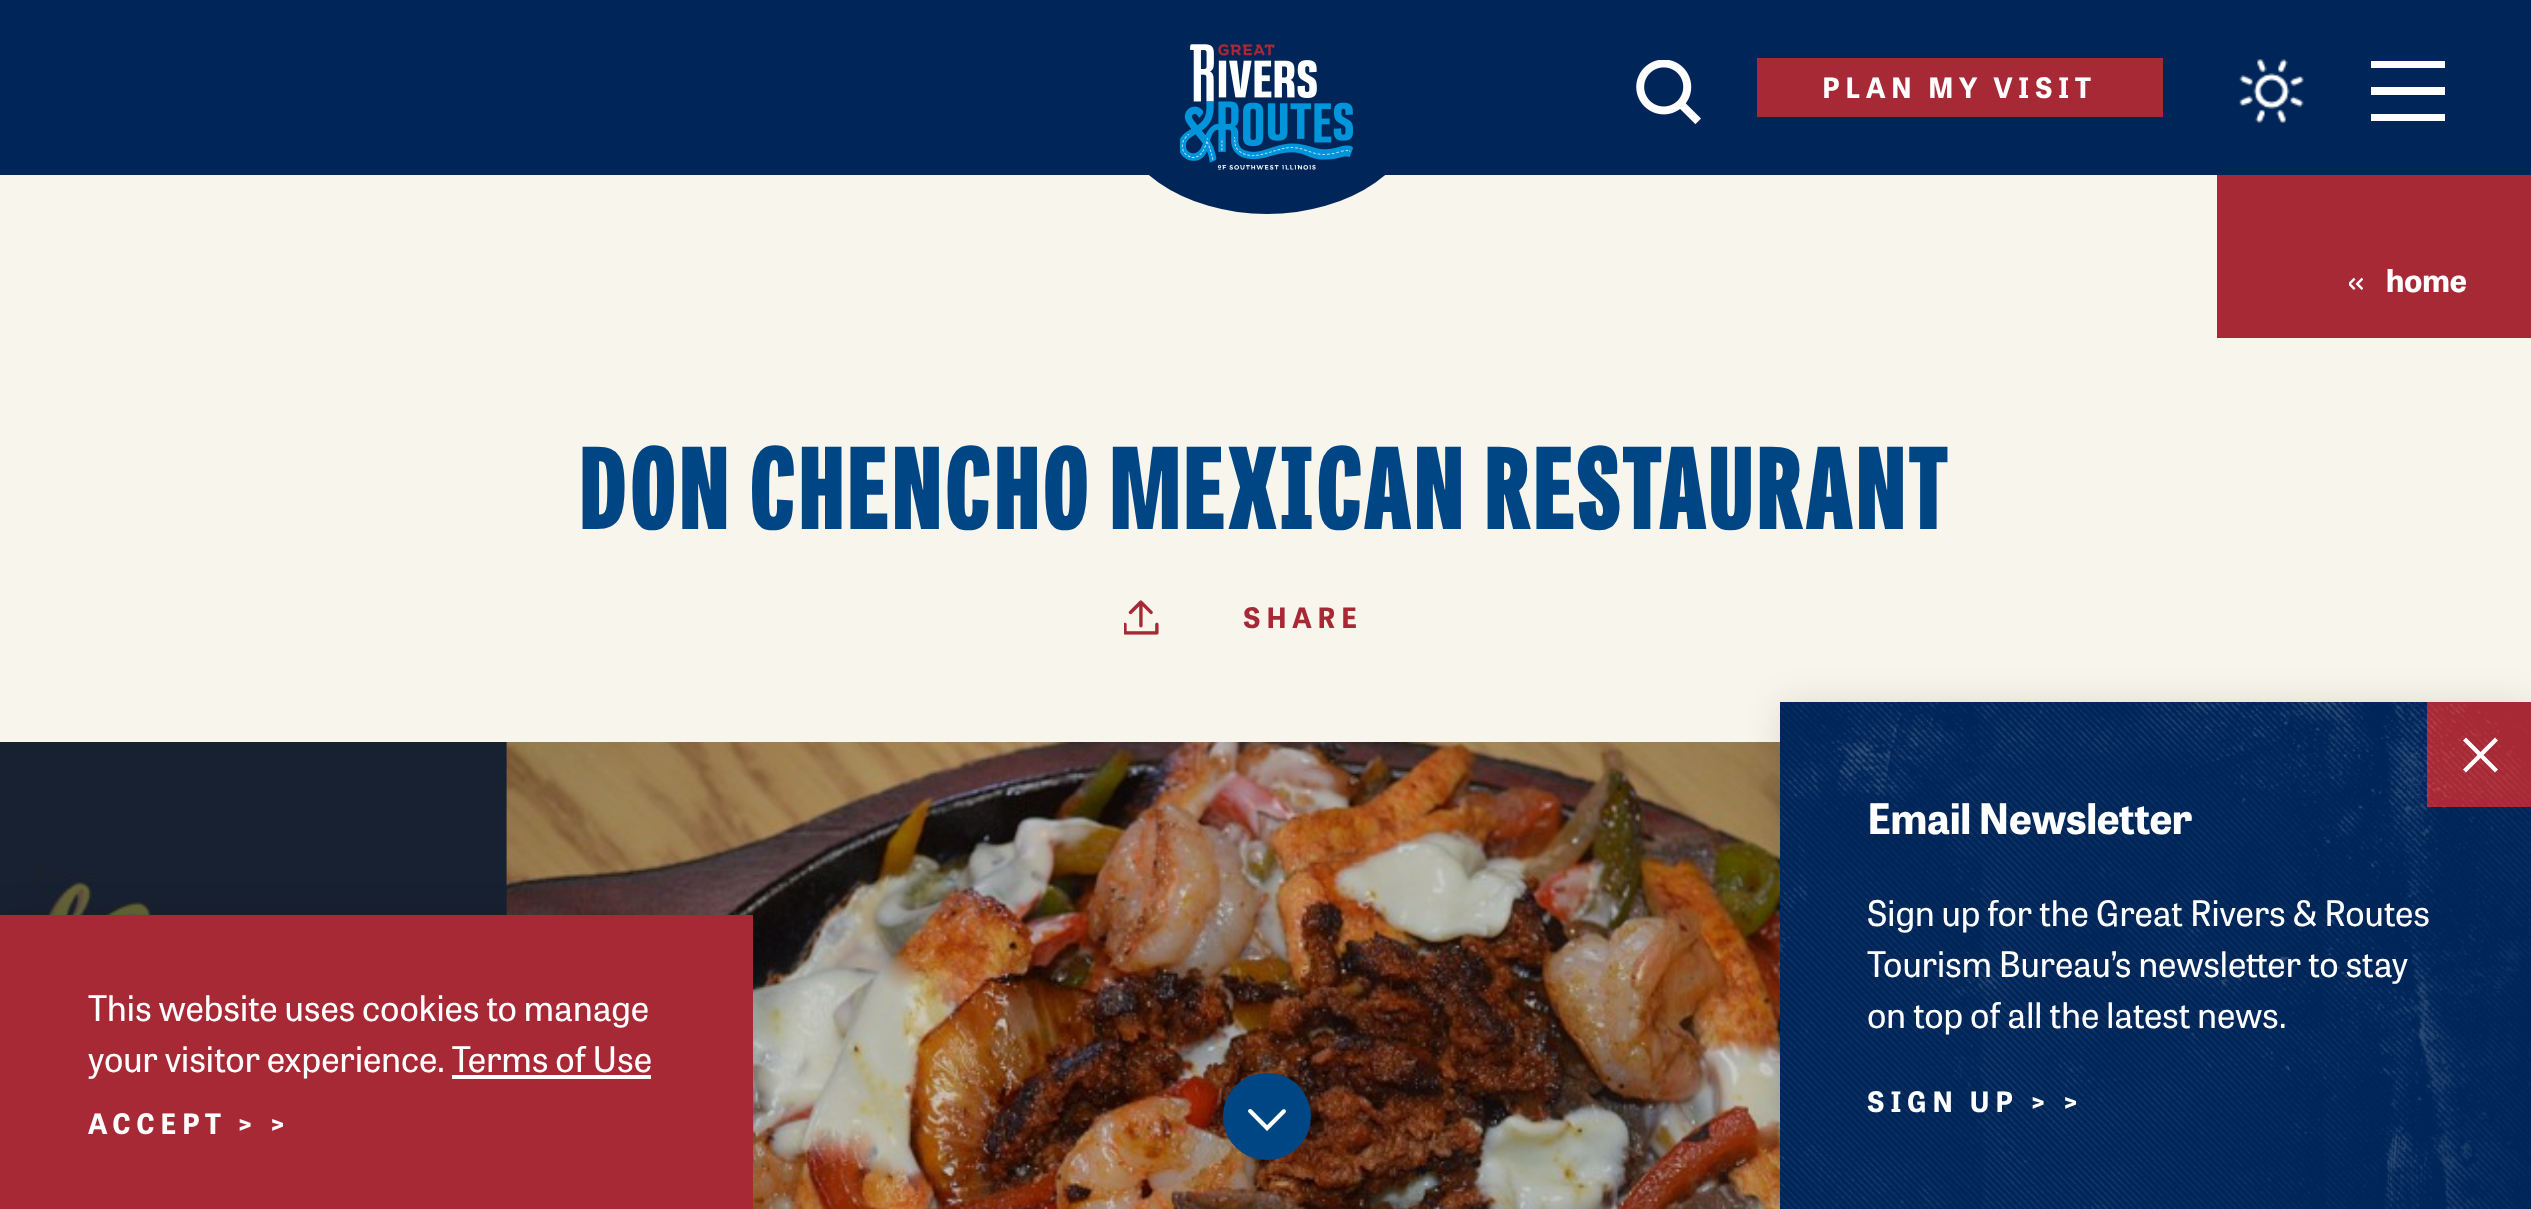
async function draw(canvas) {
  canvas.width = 2531;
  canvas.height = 1209;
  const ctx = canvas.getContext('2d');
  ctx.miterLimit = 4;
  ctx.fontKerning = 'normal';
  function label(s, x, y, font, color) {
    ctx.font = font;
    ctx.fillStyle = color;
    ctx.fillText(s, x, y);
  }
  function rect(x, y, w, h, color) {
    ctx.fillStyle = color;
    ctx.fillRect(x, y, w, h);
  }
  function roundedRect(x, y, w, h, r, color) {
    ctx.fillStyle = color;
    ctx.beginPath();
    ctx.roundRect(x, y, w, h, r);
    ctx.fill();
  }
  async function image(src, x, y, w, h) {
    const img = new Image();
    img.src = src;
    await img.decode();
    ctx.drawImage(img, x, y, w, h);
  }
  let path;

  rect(0, 0, 2531, 1209, '#f8f5ed');
  rect(0, 0, 2531, 175, '#002659');
  ctx.beginPath();
  ctx.ellipse(1267, 107, 153, 107, 0, 0, 2 * Math.PI);
  ctx.fill();
  await image('assets/img1.png', 1180, 44, 173, 126);
  await image('assets/img2.png', 1636, 60, 65, 64);
  rect(1757, 58, 406, 59, '#a82936');
  ctx.letterSpacing = '5.6px';
  label('PLAN MY VISIT', 1822, 98, 'bold 28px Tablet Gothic', '#fff');
  await image('assets/img3.png', 2239, 59, 65, 64);
  path = new Path2D('M2445 114H2371V121H2445ZM2445 87H2371V95H2445ZM2445 61H2371V68H2445Z');
  ctx.fill(path, 'evenodd');
  rect(2217, 175, 314, 163, '#a82936');
  await image('assets/img4.png', 2349, 277, 14, 13);
  ctx.letterSpacing = '0px';
  label('home', 2386, 292, 'bold 31.5px Tablet Gothic', '#fff');
  ctx.letterSpacing = '3.9px';
  label('DON CHENCHO MEXICAN RESTAURANT', 580, 529, '900 112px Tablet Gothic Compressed', '#004684');
  await image('assets/img5.png', 1124, 600, 35, 35);
  ctx.letterSpacing = '5.6px';
  label('SHARE', 1243, 628, 'bold 28px Tablet Gothic', '#a82936');
  rect(506, 742, 1, 173, '#002659');
  rect(0, 742, 506, 173, '#001e47');
  await image('assets/img7.png', 506, 742, 1274, 467);
  await image('assets/img6.png', 0, 742, 507, 173);
  rect(506, 742, 1274, 467, '#00000033');
  ctx.fillStyle = '#0000001a';
  ctx.filter = 'blur(17.5px)';
  ctx.beginPath();
  ctx.rect(0, 915, 753, 294);
  ctx.fill();
  ctx.filter = 'none';
  rect(0, 915, 753, 294, '#a82936');
  ctx.letterSpacing = '0px';
  label('This website uses cookies to manage', 88, 1021, '35px Tablet Gothic', '#fff');
  label('your visitor experience. Terms of Use', 88, 1072, '35px Tablet Gothic', '#fff');
  rect(452, 1075, 199, 4, '#fff');
  ctx.letterSpacing = '5.6px';
  label('ACCEPT', 88, 1134, 'bold 28px Tablet Gothic', '#fff');
  label('> >', 237, 1133, 'bold 28px Tablet Gothic', '#fff');
  roundedRect(1223, 1073, 88, 87, 43.5, '#004684');
  await image('assets/img8.png', 1248, 1108, 38, 23);
  ctx.fillStyle = '#0000001a';
  ctx.filter = 'blur(17.5px)';
  ctx.beginPath();
  ctx.rect(1780, 702, 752, 507);
  ctx.fill();
  ctx.filter = 'none';
  rect(1780, 702, 751, 507, '#002659');
  rect(2427, 702, 104, 105, '#a82936');
  ctx.fillStyle = '#fff';
  path = new Path2D('M2463 740.5L2466 737.5L2480.5 752L2495 737.5L2498 740.5L2483.5 755L2498 769.5L2495 772.5L2480.5 758L2466 772.5L2463 769.5L2477.5 755Z');
  ctx.fill(path, 'evenodd');
  ctx.letterSpacing = '-0.4px';
  label('Email Newsletter', 1867, 834, 'bold 42px Tablet Gothic', '#fff');
  ctx.letterSpacing = '0px';
  label('Sign up for the Great Rivers & Routes', 1867, 926, '35px Tablet Gothic', '#fff');
  label('Tourism Bureau’s newsletter to stay', 1867, 977, '35px Tablet Gothic', '#fff');
  label('on top of all the latest news.', 1867, 1028, '35px Tablet Gothic', '#fff');
  ctx.letterSpacing = '5.6px';
  label('SIGN UP', 1867, 1112, 'bold 28px Tablet Gothic', '#fff');
  label('> >', 2030, 1111, 'bold 28px Tablet Gothic', '#fff');
  await image('assets/img9.png', 1780, 702, 751, 507);
}

draw(document.querySelector('canvas'));
